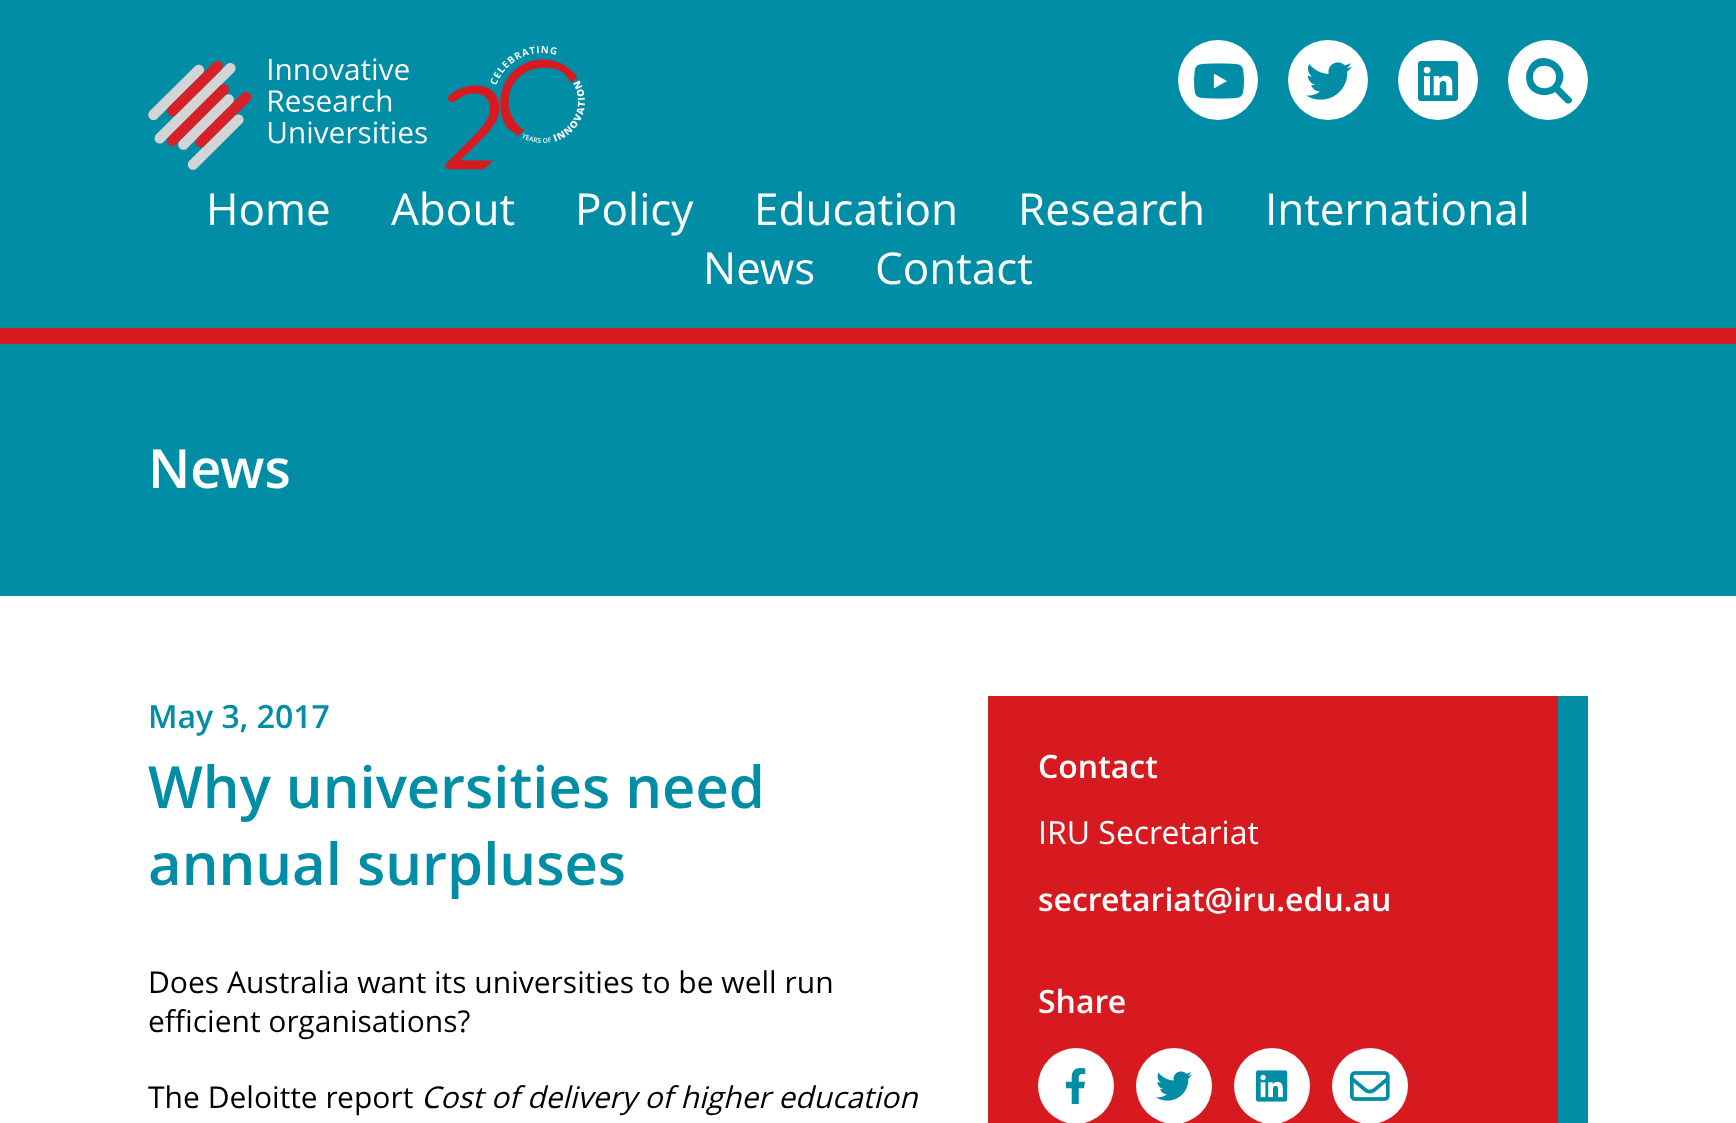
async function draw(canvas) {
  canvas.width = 1736;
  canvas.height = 1123;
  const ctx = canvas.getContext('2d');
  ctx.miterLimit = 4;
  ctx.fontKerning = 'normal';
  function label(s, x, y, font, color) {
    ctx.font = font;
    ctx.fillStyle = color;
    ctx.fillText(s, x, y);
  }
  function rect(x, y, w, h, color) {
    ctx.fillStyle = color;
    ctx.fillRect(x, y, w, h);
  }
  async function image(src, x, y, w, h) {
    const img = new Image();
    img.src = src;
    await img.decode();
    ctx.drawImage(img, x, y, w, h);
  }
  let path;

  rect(0, 0, 1736, 1123, '#fff');
  rect(0, 0, 1736, 328, '#008da5');
  rect(0, 328, 1736, 16, '#d71920');
  await image('assets/img1.png', 148, 46, 437, 124);
  ctx.fillStyle = '#fff';
  ctx.beginPath();
  ctx.arc(1218, 80, 40, 0, 2 * Math.PI);
  ctx.fill();
  await image('assets/img2.png', 1194, 63, 50, 36);
  ctx.beginPath();
  ctx.arc(1328, 80, 40, 0, 2 * Math.PI);
  ctx.fill();
  await image('assets/img3.png', 1306, 62, 46, 38);
  ctx.beginPath();
  ctx.arc(1438, 80, 40, 0, 2 * Math.PI);
  ctx.fill();
  await image('assets/img4.png', 1418, 61, 40, 40);
  ctx.beginPath();
  ctx.arc(1548, 80, 40, 0, 2 * Math.PI);
  ctx.fill();
  ctx.fillStyle = '#008da5';
  path = new Path2D('M1571 98L1560 87C1575 65 1538 45 1528 69C1525 74 1526 81 1528 86C1533 95 1546 98 1555 92L1566 103C1570 105 1574 101 1571 98ZM1533 77C1533 62 1556 62 1556 77C1556 92 1533 92 1533 77Z');
  ctx.fill(path);
  label('Home', 206, 225, '44px Open Sans', '#fff');
  label('About', 391, 225, '44px Open Sans', '#fff');
  label('Policy', 575, 225, '44px Open Sans', '#fff');
  label('Education', 754, 225, '44px Open Sans', '#fff');
  label('Research', 1018, 225, '44px Open Sans', '#fff');
  label('International', 1265, 225, '44px Open Sans', '#fff');
  label('News', 703, 284, '44px Open Sans', '#fff');
  label('Contact', 875, 284, '44px Open Sans', '#fff');
  rect(0, 344, 1736, 252, '#008da5');
  label('News', 148, 488, '600 54px Open Sans', '#fff');
  label('May 3, 2017', 148, 728, '600 32px Open Sans', '#008da5');
  label('Why universities need', 148, 808, '600 58px Open Sans', '#008da5');
  label('annual surpluses', 148, 885, '600 58px Open Sans', '#008da5');
  label('Does Australia want its universities to be well run', 148, 993, '30px Open Sans', '#000');
  label('efficient organisations?', 148, 1032, '30px Open Sans', '#000');
  label('The Deloitte report', 148, 1108, '30px Open Sans', '#000');
  label('Cost of delivery of higher education', 421, 1108, 'italic 30px Open Sans', '#000');
  rect(1558, 696, 30, 427, '#008da5');
  rect(988, 696, 570, 427, '#d71920');
  label('Contact', 1038, 778, '600 32px Open Sans', '#fff');
  label('IRU Secretariat', 1038, 844, '32px Open Sans', '#fff');
  label('secretariat@iru.edu.au', 1038, 911, '600 32px Open Sans', '#fff');
  label('Share', 1038, 1013, '600 32px Open Sans', '#fff');
  ctx.beginPath();
  ctx.arc(1076, 1086, 38, 0, 2 * Math.PI);
  ctx.fill();
  await image('assets/img5.png', 1066, 1068, 20, 36);
  ctx.beginPath();
  ctx.arc(1174, 1086, 38, 0, 2 * Math.PI);
  ctx.fill();
  await image('assets/img6.png', 1156, 1071, 36, 30);
  ctx.beginPath();
  ctx.arc(1272, 1086, 38, 0, 2 * Math.PI);
  ctx.fill();
  await image('assets/img7.png', 1256, 1070, 32, 32);
  ctx.beginPath();
  ctx.arc(1370, 1086, 38, 0, 2 * Math.PI);
  ctx.fill();
  await image('assets/img8.png', 1350, 1071, 40, 30);
}

draw(document.querySelector('canvas'));
